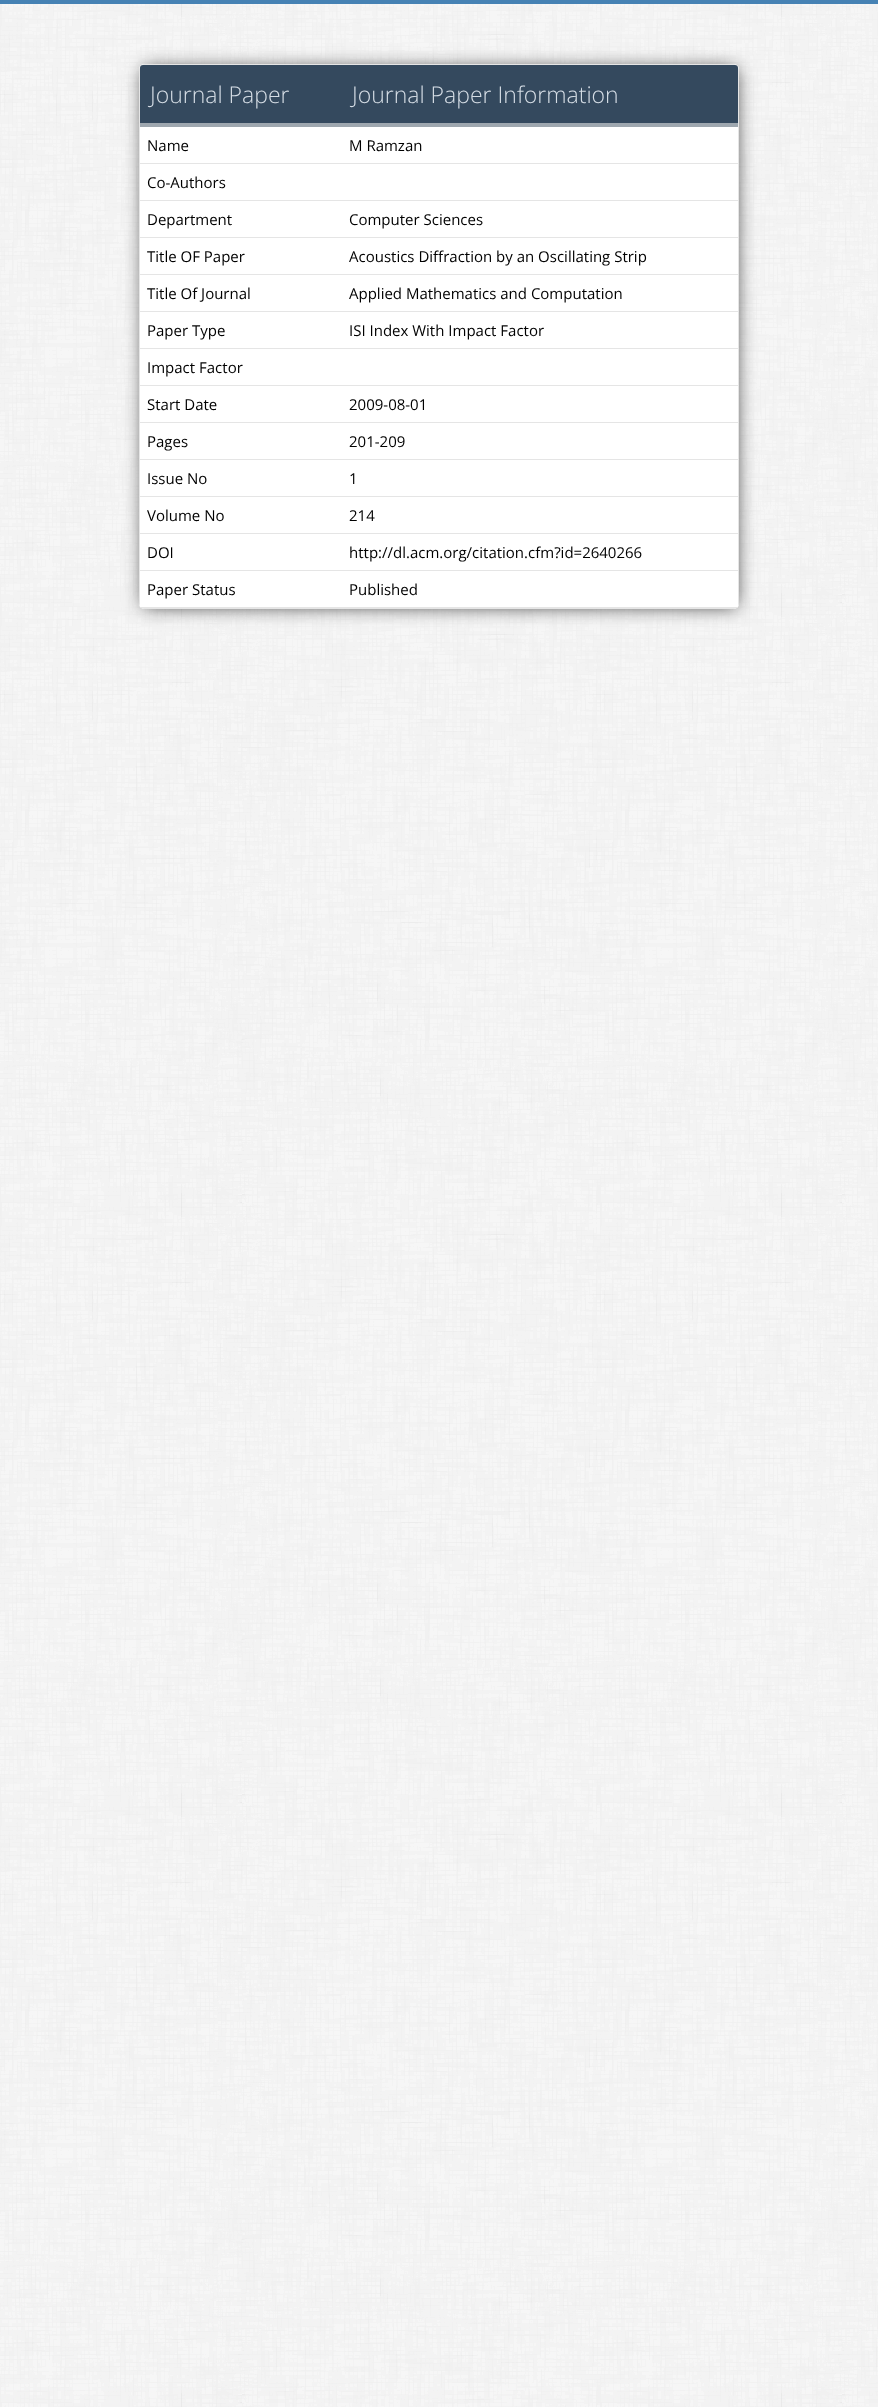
async function draw(canvas) {
  canvas.width = 878;
  canvas.height = 2407;
  const ctx = canvas.getContext('2d');
  ctx.miterLimit = 4;
  ctx.fontKerning = 'normal';
  function label(s, x, y, font, color) {
    ctx.font = font;
    ctx.fillStyle = color;
    ctx.fillText(s, x, y);
  }
  function rect(x, y, w, h, color) {
    ctx.fillStyle = color;
    ctx.fillRect(x, y, w, h);
  }
  function roundedRect(x, y, w, h, r, color) {
    ctx.fillStyle = color;
    ctx.beginPath();
    ctx.roundRect(x, y, w, h, r);
    ctx.fill();
  }
  async function image(src, x, y, w, h) {
    const img = new Image();
    img.src = src;
    await img.decode();
    ctx.drawImage(img, x, y, w, h);
  }
  let path;

  rect(0, 0, 878, 2407, '#fff');
  await image('assets/img1.png', 0, 4, 878, 2403);
  rect(0, 0, 878, 4, '#4682b4');
  ctx.fillStyle = '#323232';
  ctx.filter = 'blur(9.5px)';
  ctx.beginPath();
  ctx.rect(144, 69, 592, 537);
  ctx.fill();
  ctx.filter = 'none';
  roundedRect(139, 64, 600, 545, 5, '#fff');
  ctx.fillStyle = '#e5e5e5';
  path = new Path2D('M139 69V604L140 607V66ZM144 64L141 65H737L734 64ZM739 69L738 66V607L739 604ZM734 609L737 608H141L144 609Z');
  ctx.fill(path, 'evenodd');
  ctx.fillStyle = '#34495e';
  ctx.beginPath();
  ctx.roundRect(140, 65, 202, 62, [3, 0, 0, 0]);
  ctx.fill();
  rect(140, 123, 202, 4, '#9ea7af');
  label('Journal Paper', 150, 103, '300 23px Open Sans', '#d5dde5');
  ctx.fillStyle = '#34495e';
  ctx.beginPath();
  ctx.roundRect(342, 65, 396, 62, [0, 3, 0, 0]);
  ctx.fill();
  rect(342, 123, 396, 4, '#9ea7af');
  label('Journal Paper Information', 352, 103, '300 23px Open Sans', '#d5dde5');
  rect(140, 163, 598, 1, '#e5e5e5');
  label('Name', 147, 151, '15px Open Sans', '#000');
  label('M Ramzan', 349, 151, '15px Open Sans', '#000');
  rect(140, 200, 598, 1, '#e5e5e5');
  label('Co-Authors', 147, 188, '15px Open Sans', '#000');
  rect(140, 237, 598, 1, '#e5e5e5');
  label('Department', 147, 225, '15px Open Sans', '#000');
  label('Computer Sciences', 349, 225, '15px Open Sans', '#000');
  rect(140, 274, 598, 1, '#e5e5e5');
  label('Title OF Paper', 147, 262, '15px Open Sans', '#000');
  label('Acoustics Diffraction by an Oscillating Strip', 349, 262, '15px Open Sans', '#000');
  rect(140, 311, 598, 1, '#e5e5e5');
  label('Title Of Journal', 147, 299, '15px Open Sans', '#000');
  label('Applied Mathematics and Computation', 349, 299, '15px Open Sans', '#000');
  rect(140, 348, 598, 1, '#e5e5e5');
  label('Paper Type', 147, 336, '15px Open Sans', '#000');
  label('ISI Index With Impact Factor', 349, 336, '15px Open Sans', '#000');
  rect(140, 385, 598, 1, '#e5e5e5');
  label('Impact Factor', 147, 373, '15px Open Sans', '#000');
  rect(140, 422, 598, 1, '#e5e5e5');
  label('Start Date', 147, 410, '15px Open Sans', '#000');
  label('2009-08-01', 349, 410, '15px Open Sans', '#000');
  rect(140, 459, 598, 1, '#e5e5e5');
  label('Pages', 147, 447, '15px Open Sans', '#000');
  label('201-209', 349, 447, '15px Open Sans', '#000');
  rect(140, 496, 598, 1, '#e5e5e5');
  label('Issue No', 147, 484, '15px Open Sans', '#000');
  label('1', 349, 484, '15px Open Sans', '#000');
  rect(140, 533, 598, 1, '#e5e5e5');
  label('Volume No', 147, 521, '15px Open Sans', '#000');
  label('214', 349, 521, '15px Open Sans', '#000');
  rect(140, 570, 598, 1, '#e5e5e5');
  label('DOI', 147, 558, '15px Open Sans', '#000');
  label('http://dl.acm.org/citation.cfm?id=2640266', 349, 558, '15px Open Sans', '#000');
  rect(140, 607, 598, 1, '#e5e5e5');
  label('Paper Status', 147, 595, '15px Open Sans', '#000');
  label('Published', 349, 595, '15px Open Sans', '#000');
}

draw(document.querySelector('canvas'));
